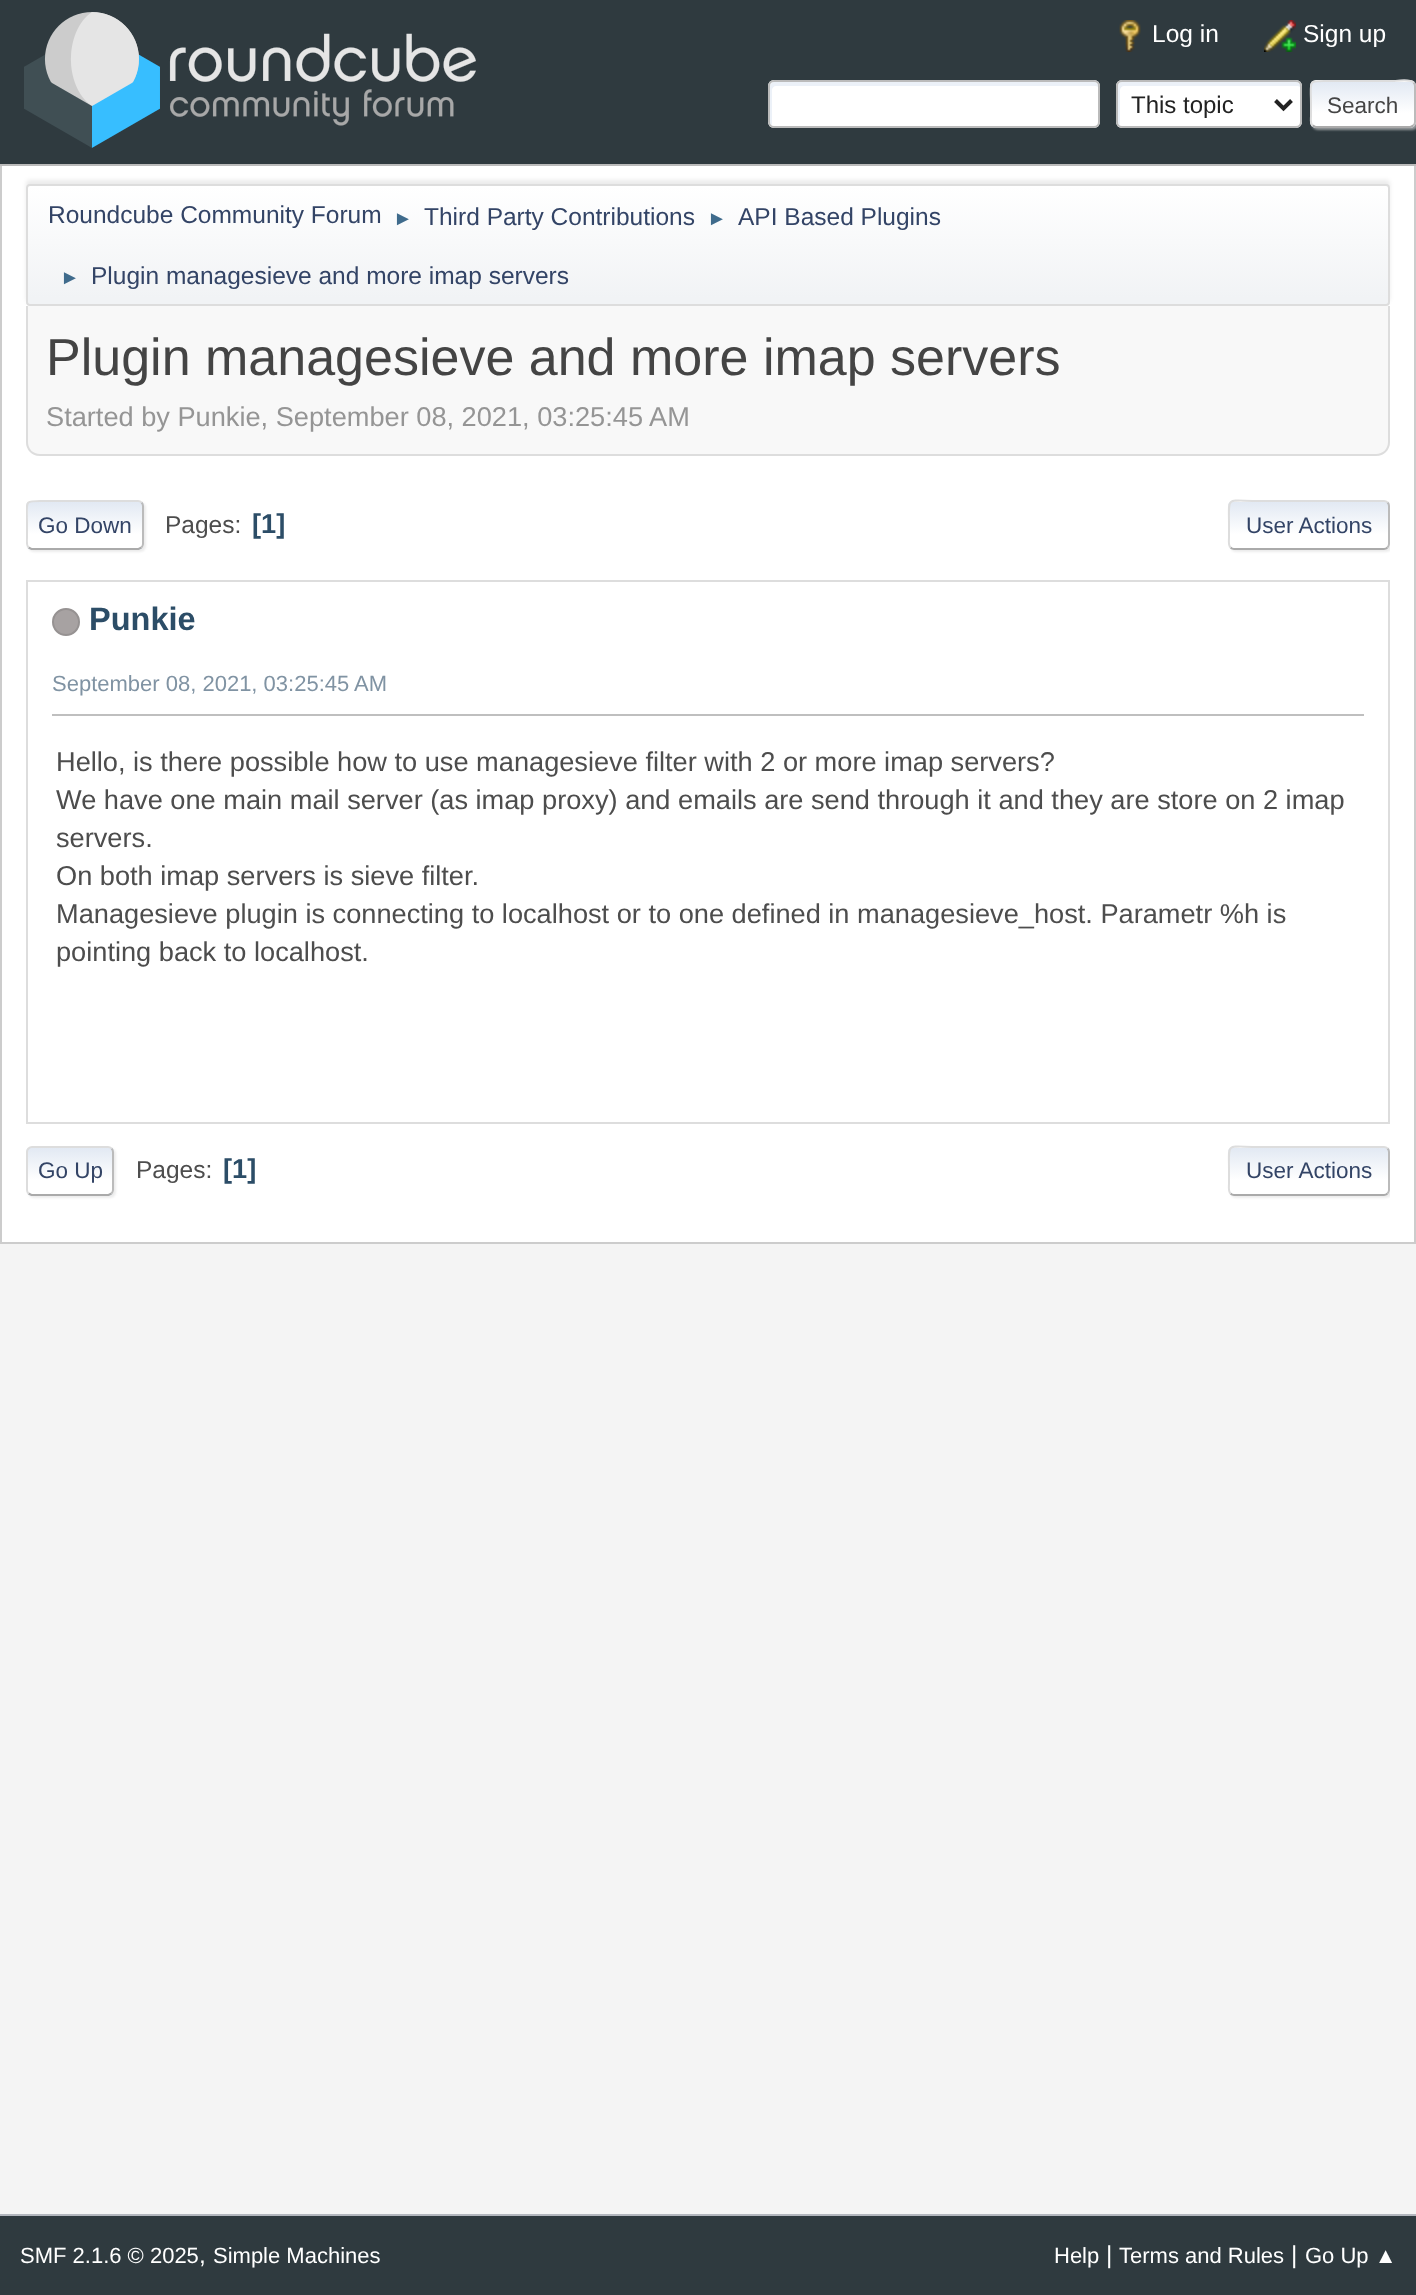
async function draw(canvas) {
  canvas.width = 1416;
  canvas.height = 2295;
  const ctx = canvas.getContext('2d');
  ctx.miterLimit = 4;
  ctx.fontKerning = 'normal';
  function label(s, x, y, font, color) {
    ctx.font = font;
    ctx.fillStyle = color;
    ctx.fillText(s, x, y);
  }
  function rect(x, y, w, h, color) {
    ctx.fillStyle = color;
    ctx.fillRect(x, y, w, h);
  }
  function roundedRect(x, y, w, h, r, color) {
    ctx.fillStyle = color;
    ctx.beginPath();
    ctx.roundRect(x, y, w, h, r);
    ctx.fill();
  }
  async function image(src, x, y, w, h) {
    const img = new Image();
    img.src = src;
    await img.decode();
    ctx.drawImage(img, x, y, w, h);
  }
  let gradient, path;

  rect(0, 0, 1416, 2295, '#f4f4f4');
  rect(0, 0, 1416, 164, '#2f3a3f');
  rect(0, 164, 1416, 2, '#bbb');
  await image('assets/img1.png', 24, 12, 452, 136);
  await image('assets/img2.png', 1119, 20, 22, 32);
  label('Log in', 1152, 42, '24.5px Liberation Sans', '#fff');
  await image('assets/img3.png', 1264, 20, 32, 32);
  label('Sign up', 1303, 42, '24.5px Liberation Sans', '#fff');
  roundedRect(768, 80, 332, 48, 6, '#fff');
  ctx.fillStyle = '#ecf1f8';
  path = new Path2D('M776 86H1096L1098 87V86C1098 84 1096 82 1094 82H774C772 82 770 84 770 86V122C770 123 771 125 772 125V90C772 88 774 86 776 86Z');
  ctx.fill(path);
  ctx.beginPath();
  ctx.roundRect(769, 81, 330, 46, 5);
  ctx.strokeStyle = '#bbb';
  ctx.lineWidth = 2;
  ctx.stroke();
  roundedRect(1116, 80, 186, 48, 6, '#fff');
  ctx.fillStyle = '#ecf1f8';
  path = new Path2D('M1124 86H1298L1300 87V86C1300 84 1298 82 1296 82H1122C1120 82 1118 84 1118 86V122C1118 123 1119 125 1120 125V90C1120 88 1122 86 1124 86Z');
  ctx.fill(path);
  ctx.beginPath();
  ctx.roundRect(1117, 81, 184, 46, 5);
  ctx.stroke();
  path = new Path2D('M1275.5 100.5L1283.5 108.5L1291.5 100.5');
  ctx.strokeStyle = '#222';
  ctx.lineWidth = 4;
  ctx.stroke(path);
  label('This topic', 1131, 113, '24px Liberation Sans', '#222');
  ctx.fillStyle = '#dddddd91';
  ctx.filter = 'blur(1px)';
  ctx.beginPath();
  ctx.roundRect(1312, 82, 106, 48, 6);
  ctx.fill();
  ctx.filter = 'none';
  ctx.save();
  ctx.beginPath();
  ctx.roundRect(1310, 80, 106, 48, 6);
  ctx.clip();
  gradient = ctx.createLinearGradient(1363, 38, 1363, 82);
  gradient.addColorStop(0, '#e2e9f3');
  gradient.addColorStop(0.7, '#fff');
  ctx.fillStyle = gradient;
  ctx.fillRect(1310, 80, 106, 2);
  gradient = ctx.createLinearGradient(1363, 82, 1363, 126);
  gradient.addColorStop(0, '#e2e9f3');
  gradient.addColorStop(0.7, '#fff');
  ctx.fillStyle = gradient;
  ctx.fillRect(1310, 82, 106, 44);
  gradient = ctx.createLinearGradient(1363, 126, 1363, 170);
  gradient.addColorStop(0, '#e2e9f3');
  gradient.addColorStop(0.7, '#fff');
  ctx.fillStyle = gradient;
  ctx.fillRect(1310, 126, 106, 2);
  ctx.restore();
  path = new Path2D('M1413.5 82.5C1414.5 83.5 1415 84.5 1415 86V122C1415 123.5 1414.5 124.5 1413.5 125.5');
  ctx.strokeStyle = '#bbb';
  ctx.lineWidth = 2;
  ctx.stroke(path);
  path = new Path2D('M1413.5 125.5L1410.5 127H1315.5L1312.5 125.5');
  ctx.strokeStyle = '#aaa';
  ctx.stroke(path);
  path = new Path2D('M1312.5 125.5C1310 123 1311 118.5 1311 116V104C1311 78.5 1306.5 81 1331.5 81H1394.5C1395.5 81 1409.5 78.5 1413.5 82.5');
  ctx.strokeStyle = '#ddd';
  ctx.stroke(path);
  label('Search', 1327, 113, '22.5px Liberation Sans', '#444');
  rect(2, 166, 1412, 1076, '#fff');
  rect(1414, 166, 2, 1078, '#ccc');
  rect(0, 1242, 1416, 2, '#ccc');
  rect(0, 166, 2, 1078, '#ccc');
  ctx.fillStyle = '#00000014';
  ctx.filter = 'blur(2px)';
  ctx.beginPath();
  ctx.roundRect(26, 180, 1364, 122, 4);
  ctx.fill();
  ctx.filter = 'none';
  ctx.save();
  ctx.beginPath();
  ctx.roundRect(26, 184, 1364, 122, 4);
  ctx.clip();
  gradient = ctx.createLinearGradient(708, 186, 708, 304);
  gradient.addColorStop(0, '#fff');
  gradient.addColorStop(0.95, '#f1f3f5');
  ctx.fillStyle = gradient;
  ctx.fillRect(26, 186, 1364, 118);
  ctx.restore();
  ctx.beginPath();
  ctx.roundRect(27, 185, 1362, 120, 3);
  ctx.stroke();
  label('Roundcube Community Forum', 48, 223, '24.5px Liberation Sans', '#346');
  label('►', 393, 225, '20px Liberation Sans', '#3f6b8c');
  label('Third Party Contributions', 424, 225, '24.5px Liberation Sans', '#346');
  label('►', 707, 225, '20px Liberation Sans', '#3f6b8c');
  label('API Based Plugins', 738, 225, '24.5px Liberation Sans', '#346');
  label('►', 60, 284, '20px Liberation Sans', '#3f6b8c');
  label('Plugin managesieve and more imap servers', 91, 284, '24.5px Liberation Sans', '#346');
  ctx.fillStyle = '#f8f8f8';
  ctx.beginPath();
  ctx.roundRect(26, 306, 1364, 150, [0, 0, 14, 14]);
  ctx.fill();
  ctx.fillStyle = '#ddd';
  path = new Path2D('M26 306H1390V442C1390 450 1384 456 1376 456H40C32 456 26 450 26 442ZM28 306H1388V442C1388 449 1383 454 1376 454H40C33 454 28 449 28 442Z');
  ctx.fill(path, 'evenodd');
  label('Plugin managesieve and more imap servers', 46, 375, '52px Liberation Sans', '#444');
  label('Started by Punkie, September 08, 2021, 03:25:45 AM', 46, 426, '27.2px Liberation Sans', '#959595');
  ctx.fillStyle = '#dddddd91';
  ctx.filter = 'blur(1px)';
  ctx.beginPath();
  ctx.roundRect(28, 502, 118, 50, 6);
  ctx.fill();
  ctx.filter = 'none';
  roundedRect(26, 500, 118, 50, 6, '#fff');
  ctx.save();
  ctx.beginPath();
  ctx.roundRect(26, 500, 118, 50, 6);
  ctx.clip();
  gradient = ctx.createLinearGradient(85, 502, 85, 548);
  gradient.addColorStop(0, '#e2e9f3');
  gradient.addColorStop(0.7, '#fff');
  ctx.fillStyle = gradient;
  ctx.fillRect(26, 502, 118, 46);
  gradient = ctx.createLinearGradient(85, 548, 85, 594);
  gradient.addColorStop(0, '#e2e9f3');
  gradient.addColorStop(0.7, '#fff');
  ctx.fillStyle = gradient;
  ctx.fillRect(26, 548, 118, 2);
  ctx.restore();
  path = new Path2D('M141.5 502.5C142.5 503.5 143 504.5 143 506V544C143 545.5 142.5 546.5 141.5 547.5');
  ctx.strokeStyle = '#bbb';
  ctx.stroke(path);
  path = new Path2D('M141.5 547.5L138.5 549H31.5L28.5 547.5');
  ctx.strokeStyle = '#aaa';
  ctx.stroke(path);
  ctx.save();
  ctx.beginPath();
  ctx.rect(26, 486, 1364, 78);
  ctx.clip();
  path = new Path2D('M28.5 547.5C26 545 27 540.5 27 537.5V525C27 498 22.5 501 49.5 501H138C139.5 501 140.5 501.5 141.5 502.5');
  ctx.strokeStyle = '#ddd';
  ctx.stroke(path);
  ctx.restore();
  label('Go Down', 38, 533, '22.5px Liberation Sans', '#346');
  label('Pages:', 165, 533, '24.5px Liberation Sans', '#4d4d4d');
  label('[1]', 252, 533, 'bold 27.2px Liberation Sans', '#2c4d67');
  ctx.save();
  ctx.beginPath();
  ctx.rect(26, 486, 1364, 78);
  ctx.clip();
  ctx.fillStyle = '#dddddd91';
  ctx.filter = 'blur(1px)';
  ctx.beginPath();
  ctx.roundRect(1230, 502, 162, 50, 6);
  ctx.fill();
  ctx.filter = 'none';
  ctx.restore();
  roundedRect(1228, 500, 162, 50, 6, '#fff');
  ctx.save();
  ctx.beginPath();
  ctx.roundRect(1228, 500, 162, 50, 6);
  ctx.clip();
  gradient = ctx.createLinearGradient(1309, 502, 1309, 548);
  gradient.addColorStop(0, '#e2e9f3');
  gradient.addColorStop(0.7, '#fff');
  ctx.fillStyle = gradient;
  ctx.fillRect(1228, 502, 162, 46);
  ctx.restore();
  path = new Path2D('M1387.5 502.5C1388.5 503.5 1389 504.5 1389 506V544C1389 545.5 1388.5 546.5 1387.5 547.5');
  ctx.strokeStyle = '#bbb';
  ctx.stroke(path);
  path = new Path2D('M1387.5 547.5C1386.5 548.5 1385.5 549 1384 549H1234C1232.5 549 1231.5 548.5 1230.5 547.5');
  ctx.strokeStyle = '#aaa';
  ctx.stroke(path);
  path = new Path2D('M1230.5 547.5C1228 545 1229 540.5 1229 537.5V525C1229 495 1225 501 1259 501H1384C1385.5 501 1386.5 501.5 1387.5 502.5');
  ctx.strokeStyle = '#ddd';
  ctx.stroke(path);
  label('User Actions', 1246, 533, '22.5px Liberation Sans', '#346');
  ctx.strokeRect(27, 581, 1362, 542);
  ctx.fillStyle = '#a7a2a2';
  ctx.beginPath();
  ctx.arc(66, 622, 13, 0, 2 * Math.PI);
  ctx.fill();
  ctx.strokeStyle = '#969292';
  ctx.stroke();
  label('Punkie', 89, 630, 'bold 32.5px Liberation Sans', '#2c4d67');
  label('September 08, 2021, 03:25:45 AM', 52, 691, '22px Liberation Sans', '#8093a3');
  rect(52, 714, 1312, 2, '#bfbfbf');
  label('Hello, is there possible how to use managesieve filter with 2 or more imap servers?', 56, 771, '27.2px Liberation Sans', '#4d4d4d');
  label('We have one main mail server (as imap proxy) and emails are send through it and they are store on 2 imap', 56, 809, '27.2px Liberation Sans', '#4d4d4d');
  label('servers.', 56, 847, '27.2px Liberation Sans', '#4d4d4d');
  label('On both imap servers is sieve filter.', 56, 885, '27.2px Liberation Sans', '#4d4d4d');
  label('Managesieve plugin is connecting to localhost or to one defined in managesieve_host. Parametr %h is', 56, 923, '27.2px Liberation Sans', '#4d4d4d');
  label('pointing back to localhost.', 56, 961, '27.2px Liberation Sans', '#4d4d4d');
  ctx.fillStyle = '#dddddd91';
  ctx.filter = 'blur(1px)';
  ctx.beginPath();
  ctx.roundRect(28, 1148, 88, 50, 6);
  ctx.fill();
  ctx.filter = 'none';
  ctx.save();
  ctx.beginPath();
  ctx.roundRect(26, 1146, 88, 50, 6);
  ctx.clip();
  gradient = ctx.createLinearGradient(70, 1148, 70, 1194);
  gradient.addColorStop(0, '#e2e9f3');
  gradient.addColorStop(0.7, '#fff');
  ctx.fillStyle = gradient;
  ctx.fillRect(26, 1148, 88, 46);
  gradient = ctx.createLinearGradient(70, 1194, 70, 1240);
  gradient.addColorStop(0, '#e2e9f3');
  gradient.addColorStop(0.7, '#fff');
  ctx.fillStyle = gradient;
  ctx.fillRect(26, 1194, 88, 2);
  ctx.restore();
  path = new Path2D('M111.5 1148.5C112.5 1149.5 113 1150.5 113 1152V1190C113 1191.5 112.5 1192.5 111.5 1193.5');
  ctx.strokeStyle = '#bbb';
  ctx.stroke(path);
  path = new Path2D('M111.5 1193.5L108.5 1195H31.5L28.5 1193.5');
  ctx.strokeStyle = '#aaa';
  ctx.stroke(path);
  path = new Path2D('M28.5 1193.5C27.5 1192.5 27 1191.5 27 1190V1152C27 1150.5 27.5 1149.5 28.5 1148.5C29.5 1147.5 30.5 1147 32 1147H108C109.5 1147 110.5 1147.5 111.5 1148.5');
  ctx.strokeStyle = '#ddd';
  ctx.stroke(path);
  label('Go Up', 38, 1178, '22.5px Liberation Sans', '#346');
  label('Pages:', 136, 1178, '24.5px Liberation Sans', '#4d4d4d');
  label('[1]', 223, 1178, 'bold 27.2px Liberation Sans', '#2c4d67');
  ctx.save();
  ctx.beginPath();
  ctx.rect(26, 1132, 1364, 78);
  ctx.clip();
  ctx.fillStyle = '#dddddd91';
  ctx.filter = 'blur(1px)';
  ctx.beginPath();
  ctx.roundRect(1230, 1148, 162, 50, 6);
  ctx.fill();
  ctx.filter = 'none';
  ctx.restore();
  roundedRect(1228, 1146, 162, 50, 6, '#fff');
  ctx.save();
  ctx.beginPath();
  ctx.roundRect(1228, 1146, 162, 50, 6);
  ctx.clip();
  gradient = ctx.createLinearGradient(1309, 1148, 1309, 1194);
  gradient.addColorStop(0, '#e2e9f3');
  gradient.addColorStop(0.7, '#fff');
  ctx.fillStyle = gradient;
  ctx.fillRect(1228, 1148, 162, 46);
  ctx.restore();
  path = new Path2D('M1387.5 1148.5C1388.5 1149.5 1389 1150.5 1389 1152V1190C1389 1191.5 1388.5 1192.5 1387.5 1193.5');
  ctx.strokeStyle = '#bbb';
  ctx.stroke(path);
  path = new Path2D('M1387.5 1193.5C1386.5 1194.5 1385.5 1195 1384 1195H1234C1232.5 1195 1231.5 1194.5 1230.5 1193.5');
  ctx.strokeStyle = '#aaa';
  ctx.stroke(path);
  path = new Path2D('M1230.5 1193.5C1228 1191 1229 1186.5 1229 1183.5V1171C1229 1141 1225 1147 1259 1147H1384C1385.5 1147 1386.5 1147.5 1387.5 1148.5');
  ctx.strokeStyle = '#ddd';
  ctx.stroke(path);
  label('User Actions', 1246, 1178, '22.5px Liberation Sans', '#346');
  rect(0, 2216, 1416, 79, '#2f3a3f');
  rect(0, 2214, 1416, 2, '#b2b6bd');
  label('SMF 2.1.6 © 2025', 20, 2263, '22px Liberation Sans', '#fff');
  label(',', 199, 2263, '24.5px Liberation Sans', '#fff');
  label('Simple Machines', 213, 2263, '22px Liberation Sans', '#fff');
  label('Help', 1054, 2263, '22px Liberation Sans', '#fff');
  label('|', 1106, 2263, '24.5px Liberation Sans', '#fff');
  label('Terms and Rules', 1119, 2263, '22px Liberation Sans', '#fff');
  label('|', 1291, 2263, '24.5px Liberation Sans', '#fff');
  label('Go Up ▲', 1305, 2263, '22px Liberation Sans', '#fff');
}

draw(document.querySelector('canvas'));
